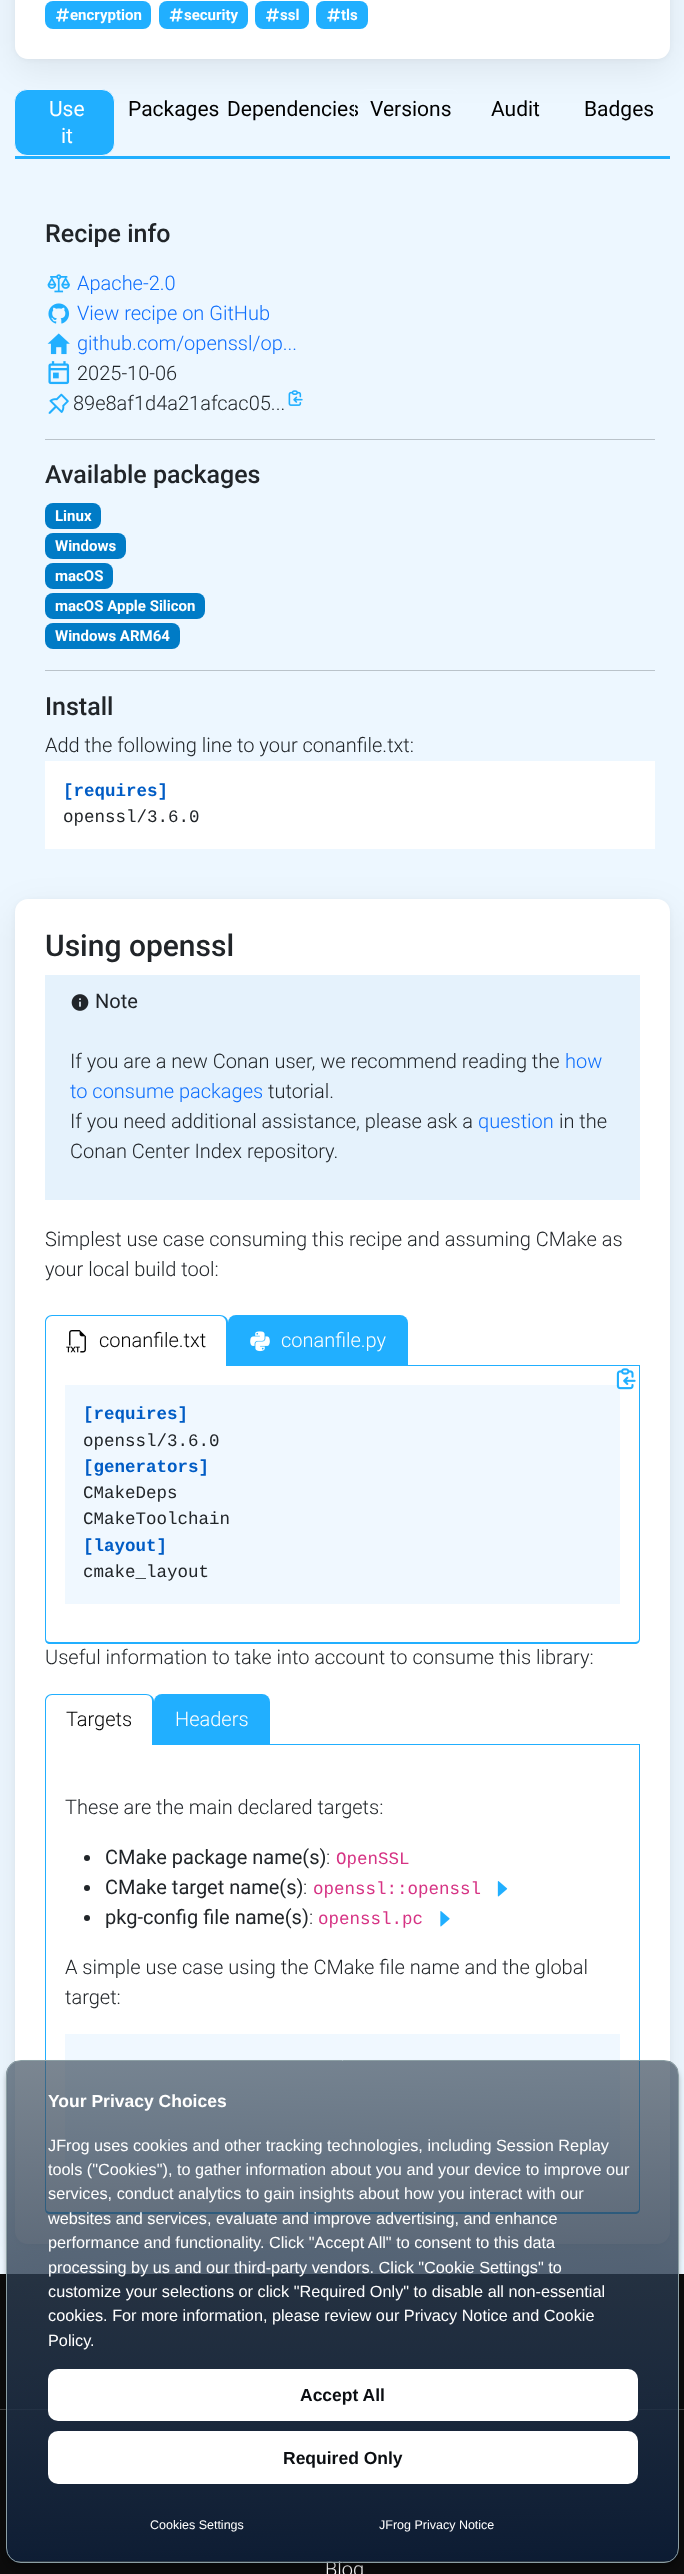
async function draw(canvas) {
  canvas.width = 684;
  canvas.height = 2574;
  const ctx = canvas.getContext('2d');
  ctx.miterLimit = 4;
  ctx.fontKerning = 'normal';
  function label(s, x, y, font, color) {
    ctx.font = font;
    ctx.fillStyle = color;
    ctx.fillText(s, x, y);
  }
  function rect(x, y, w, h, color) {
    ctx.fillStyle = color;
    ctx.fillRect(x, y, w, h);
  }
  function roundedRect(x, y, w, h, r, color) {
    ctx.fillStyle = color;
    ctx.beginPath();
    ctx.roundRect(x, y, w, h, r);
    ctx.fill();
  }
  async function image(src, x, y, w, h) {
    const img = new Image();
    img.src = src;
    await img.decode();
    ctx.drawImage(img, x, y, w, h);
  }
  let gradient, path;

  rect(0, 0, 684, 2574, '#edf7ff');
  ctx.fillStyle = '#0000000a';
  ctx.filter = 'blur(2.5px)';
  ctx.beginPath();
  ctx.roundRect(15, -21, 655, 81, 13);
  ctx.fill();
  ctx.filter = 'none';
  ctx.fillStyle = '#00000012';
  ctx.filter = 'blur(18px)';
  ctx.beginPath();
  ctx.roundRect(15, -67, 655, 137, 13);
  ctx.fill();
  ctx.filter = 'none';
  roundedRect(15, -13, 655, 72, 13, '#fff');
  roundedRect(45, 1, 106, 28, 8, '#21afff');
  await image('assets/img1.png', 56, 8, 13, 14);
  label('encryption', 70, 20, 'bold 15px Roboto', '#fff');
  roundedRect(159, 1, 89, 28, 8, '#21afff');
  await image('assets/img2.png', 169, 8, 14, 14);
  label('security', 184, 20, 'bold 15px Roboto', '#fff');
  roundedRect(255, 1, 54, 28, 8, '#21afff');
  await image('assets/img1.png', 266, 8, 13, 14);
  label('ssl', 280, 20, 'bold 15px Roboto', '#fff');
  roundedRect(316, 1, 52, 28, 8, '#21afff');
  await image('assets/img3.png', 327, 8, 14, 14);
  label('tls', 341, 20, 'bold 15px Roboto', '#fff');
  rect(15, 156, 655, 3, '#21afff');
  ctx.beginPath();
  ctx.roundRect(14.5, 89.5, 100, 66, 12.5);
  ctx.fill();
  ctx.strokeStyle = '#edf7ff';
  ctx.stroke();
  label('Use', 49, 116, '21px Roboto', '#fff');
  label('it', 61, 143, '21px Roboto', '#fff');
  label('Packages', 128, 116, '21px Roboto', '#000');
  label('Dependencies', 227, 116, '21px Roboto', '#000');
  ctx.beginPath();
  ctx.roundRect(354.5, 89.5, 108, 39, 12.5);
  ctx.stroke();
  label('Versions', 370, 116, '21px Roboto', '#000');
  label('Audit', 491, 116, '21px Roboto', '#000');
  label('Badges', 584, 116, '21px Roboto', '#000');
  label('Recipe info', 45, 242, '500 25px Roboto', '#212529');
  await image('assets/img4.png', 47, 274, 23, 19);
  label('Apache-2.0', 77, 290, '300 20px Roboto', '#0d6efd');
  await image('assets/img5.png', 48, 303, 22, 21);
  label('View recipe on GitHub', 77, 320, '300 20px Roboto', '#0d6efd');
  await image('assets/img6.png', 47, 333, 23, 22);
  label('github.com/openssl/op...', 77, 350, '300 20px Roboto', '#0d6efd');
  await image('assets/img7.png', 48, 361, 22, 24);
  label('2025-10-06', 77, 380, '300 20px Roboto', '#212529');
  await image('assets/img8.png', 48, 393, 21, 21);
  label('89e8af1d4a21afcac05...', 73, 410, '300 20px Roboto', '#212529');
  await image('assets/img9.png', 288, 390, 15, 16);
  rect(45, 439, 610, 1, '#bac3ca');
  label('Available packages', 45, 483, '500 25px Roboto', '#212529');
  roundedRect(45, 503, 56, 26, 8, '#007bc6');
  label('Linux', 55, 521, 'bold 15px Roboto', '#fff');
  roundedRect(45, 533, 81, 26, 8, '#007bc6');
  label('Windows', 55, 551, 'bold 15px Roboto', '#fff');
  roundedRect(45, 563, 68, 26, 8, '#007bc6');
  label('macOS', 55, 581, 'bold 15px Roboto', '#fff');
  roundedRect(45, 593, 160, 26, 8, '#007bc6');
  label('macOS Apple Silicon', 55, 611, 'bold 15px Roboto', '#fff');
  roundedRect(45, 623, 135, 26, 8, '#007bc6');
  label('Windows ARM64', 55, 641, 'bold 15px Roboto', '#fff');
  rect(45, 670, 610, 1, '#bac3ca');
  label('Install', 45, 715, '500 25px Roboto', '#212529');
  label('Add the following line to your conanfile.txt:', 45, 752, '300 20px Roboto', '#212529');
  rect(45, 761, 610, 88, '#fff');
  label('[requires]', 63, 796, 'bold 17.5px Liberation Mono', '#005cc5');
  label('openssl/3.6.0', 63, 822, '17.5px Liberation Mono', '#212529');
  ctx.fillStyle = '#0000000a';
  ctx.filter = 'blur(2.5px)';
  ctx.beginPath();
  ctx.roundRect(15, 900, 655, 1345, 13);
  ctx.fill();
  ctx.filter = 'none';
  ctx.fillStyle = '#00000012';
  ctx.filter = 'blur(18px)';
  ctx.beginPath();
  ctx.roundRect(15, 910, 655, 1345, 13);
  ctx.fill();
  ctx.filter = 'none';
  roundedRect(15, 899, 655, 1345, 13, '#fff');
  label('Using openssl', 45, 956, '500 30px Roboto', '#212529');
  rect(45, 975, 595, 225, '#e5f2fc');
  await image('assets/img10.png', 71, 994, 18, 17);
  label('Note', 95, 1008, '20px Roboto', '#212529');
  label('If you are a new Conan user, we recommend reading the', 70, 1068, '300 20px Roboto', '#212529');
  label('how', 565, 1068, '300 20px Roboto', '#0d6efd');
  label('to consume packages', 70, 1098, '300 20px Roboto', '#0d6efd');
  label('tutorial.', 268, 1098, '300 20px Roboto', '#212529');
  label('If you need additional assistance, please ask a', 70, 1128, '300 20px Roboto', '#212529');
  label('question', 478, 1128, '300 20px Roboto', '#0d6efd');
  label('in the', 559, 1128, '300 20px Roboto', '#212529');
  label('Conan Center Index repository.', 70, 1158, '300 20px Roboto', '#212529');
  label('Simplest use case consuming this recipe and assuming CMake as', 45, 1246, '300 20px Roboto', '#212529');
  label('your local build tool:', 45, 1276, '300 20px Roboto', '#212529');
  rect(408, 1365, 232, 1, '#21afff');
  path = new Path2D('M52 1315H220C224 1315 228 1318 228 1322V1366H45V1322C45 1318 48 1315 52 1315ZM52 1316H220C223 1316 226 1319 226 1322V1366H46V1322C46 1319 49 1316 52 1316Z');
  ctx.fill(path, 'evenodd');
  await image('assets/img11.png', 66, 1330, 20, 23);
  label('conanfile.txt', 99, 1347, '300 20px Roboto', '#000');
  ctx.fillStyle = '#21afff';
  ctx.beginPath();
  ctx.roundRect(228, 1315, 180, 51, [8, 8, 0, 0]);
  ctx.fill();
  await image('assets/img12.png', 250, 1331, 20, 21);
  label('conanfile.py', 281, 1347, '300 20px Roboto', '#fff');
  ctx.fillStyle = '#21afff';
  path = new Path2D('M45 1366H640V1639C640 1642 638 1644 635 1644H50C47 1644 45 1642 45 1639ZM46 1366H639V1639C639 1641 637 1642 635 1642H50C48 1642 46 1641 46 1639Z');
  ctx.fill(path, 'evenodd');
  rect(65, 1385, 555, 219, '#f0f8ff');
  await image('assets/img13.png', 616, 1368, 20, 22);
  label('[requires]', 83, 1419, 'bold 17.5px Liberation Mono', '#005cc5');
  label('openssl/3.6.0', 83, 1446, '17.5px Liberation Mono', '#212529');
  label('[generators]', 83, 1472, 'bold 17.5px Liberation Mono', '#005cc5');
  label('CMakeDeps', 83, 1498, '17.5px Liberation Mono', '#212529');
  label('CMakeToolchain', 83, 1524, '17.5px Liberation Mono', '#212529');
  label('[layout]', 83, 1551, 'bold 17.5px Liberation Mono', '#005cc5');
  label('cmake_layout', 83, 1577, '17.5px Liberation Mono', '#212529');
  label('Useful information to take into account to consume this library:', 45, 1664, '300 20px Roboto', '#212529');
  rect(270, 1744, 370, 1, '#21afff');
  path = new Path2D('M52 1694H146C150 1694 154 1697 154 1701V1745H45V1701C45 1697 48 1694 52 1694ZM52 1695H146C150 1695 152 1698 152 1701V1745H46V1701C46 1698 49 1695 52 1695Z');
  ctx.fill(path, 'evenodd');
  label('Targets', 66, 1726, '300 20px Roboto', '#000');
  ctx.fillStyle = '#21afff';
  ctx.beginPath();
  ctx.roundRect(154, 1694, 116, 51, [8, 8, 0, 0]);
  ctx.fill();
  label('Headers', 175, 1726, '300 20px Roboto', '#fff');
  ctx.fillStyle = '#21afff';
  path = new Path2D('M45 1745H640V2209C640 2212 638 2214 635 2214H50C47 2214 45 2212 45 2209ZM46 1745H639V2209C639 2211 637 2212 635 2212H50C48 2212 46 2211 46 2209Z');
  ctx.fill(path, 'evenodd');
  label('These are the main declared targets:', 65, 1814, '300 20px Roboto', '#212529');
  ctx.beginPath();
  ctx.arc(87, 1858, 3, 0, 2 * Math.PI);
  ctx.fill();
  label('CMake package name(s)', 105, 1864, '20px Roboto', '#212529');
  label(':', 326, 1864, '300 20px Roboto', '#212529');
  label('OpenSSL', 336, 1864, '17.5px Liberation Mono', '#d63384');
  ctx.fillStyle = '#212529';
  ctx.beginPath();
  ctx.arc(87, 1888, 3, 0, 2 * Math.PI);
  ctx.fill();
  label('CMake target name(s)', 105, 1894, '20px Roboto', '#212529');
  label(':', 303, 1894, '300 20px Roboto', '#212529');
  label('openssl::openssl', 313, 1894, '17.5px Liberation Mono', '#d63384');
  await image('assets/img14.png', 497, 1881, 11, 16);
  ctx.fillStyle = '#212529';
  ctx.beginPath();
  ctx.arc(87, 1918, 3, 0, 2 * Math.PI);
  ctx.fill();
  label('pkg-config file name(s)', 105, 1924, '20px Roboto', '#212529');
  label(':', 309, 1924, '300 20px Roboto', '#212529');
  label('openssl.pc', 318, 1924, '17.5px Liberation Mono', '#d63384');
  await image('assets/img15.png', 440, 1911, 10, 16);
  label('A simple use case using the CMake file name and the global', 65, 1974, '300 20px Roboto', '#212529');
  label('target:', 65, 2004, '300 20px Roboto', '#212529');
  rect(65, 2034, 555, 140, '#f0f8ff');
  rect(0, 2274, 684, 300, '#0c0c0c');
  rect(0, 2409, 684, 1, '#404040');
  label('Blog', 325, 2576, '300 20px Roboto', '#fff');
  ctx.save();
  path = new Path2D('M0 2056H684V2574H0ZM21 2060H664C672.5 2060 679 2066.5 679 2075V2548C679 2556.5 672.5 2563 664 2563H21C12.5 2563 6 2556.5 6 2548V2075C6 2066.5 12.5 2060 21 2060Z');
  ctx.clip(path, 'evenodd');
  ctx.fillStyle = '#00000040';
  ctx.filter = 'blur(2.5px)';
  ctx.beginPath();
  ctx.roundRect(6, 2065, 673, 503, 15);
  ctx.fill();
  ctx.filter = 'none';
  ctx.restore();
  ctx.save();
  ctx.beginPath();
  ctx.roundRect(6, 2060, 673, 503, 15);
  ctx.clip();
  gradient = ctx.createLinearGradient(-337, 2050, -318, 2573);
  gradient.addColorStop(0, '#435363b3');
  gradient.addColorStop(1, '#0c1d37e6');
  ctx.fillStyle = gradient;
  ctx.fillRect(6, 2061, 2, 500);
  gradient = ctx.createLinearGradient(333, 2050, 352, 2573);
  gradient.addColorStop(0, '#435363b3');
  gradient.addColorStop(1, '#0c1d37e6');
  ctx.fillStyle = gradient;
  ctx.fillRect(8, 2061, 670, 500);
  gradient = ctx.createLinearGradient(333, 2550, 352, 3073);
  gradient.addColorStop(0, '#435363b3');
  gradient.addColorStop(1, '#0c1d37e6');
  ctx.fillStyle = gradient;
  ctx.fillRect(8, 2561, 670, 2);
  ctx.restore();
  ctx.beginPath();
  ctx.roundRect(6.5, 2060.5, 672, 502, 14.5);
  ctx.strokeStyle = '#8c9fa4';
  ctx.stroke();
  label('Your Privacy Choices', 48, 2107, 'bold 17.5px Liberation Sans', '#fff');
  label('JFrog uses cookies and other tracking technologies, including Session Replay', 48, 2151, '16.25px Liberation Sans', '#fff');
  label('tools ("Cookies"), to gather information about you and your device to improve our', 48, 2175, '16.25px Liberation Sans', '#fff');
  label('services, conduct analytics to gain insights about how you interact with our', 48, 2199, '16.25px Liberation Sans', '#fff');
  label('websites and services, evaluate and improve advertising, and enhance', 48, 2224, '16.25px Liberation Sans', '#fff');
  label('performance and functionality. Click "Accept All" to consent to this data', 48, 2248, '16.25px Liberation Sans', '#fff');
  label('processing by us and our third-party vendors. Click "Cookie Settings" to', 48, 2273, '16.25px Liberation Sans', '#fff');
  label('customize your selections or click "Required Only" to disable all non-essential', 48, 2297, '16.25px Liberation Sans', '#fff');
  label('cookies. For more information, please review our Privacy Notice and Cookie', 48, 2321, '16.25px Liberation Sans', '#fff');
  label('Policy', 48, 2346, '16.25px Liberation Sans', '#fff');
  label('.', 90, 2346, '16.25px Liberation Sans', '#fff');
  roundedRect(48, 2369, 590, 52, 10, '#fff');
  label('Accept All', 300, 2401, 'bold 17.5px Liberation Sans', '#0b0e12');
  roundedRect(48, 2431, 590, 53, 10, '#fff');
  label('Required Only', 283, 2464, 'bold 17.5px Liberation Sans', '#0b0e12');
  label('Cookies Settings', 150, 2529, '12.5px Liberation Sans', '#fff');
  label('JFrog Privacy Notice', 379, 2529, '12.5px Liberation Sans', '#fff');
}

draw(document.querySelector('canvas'));
